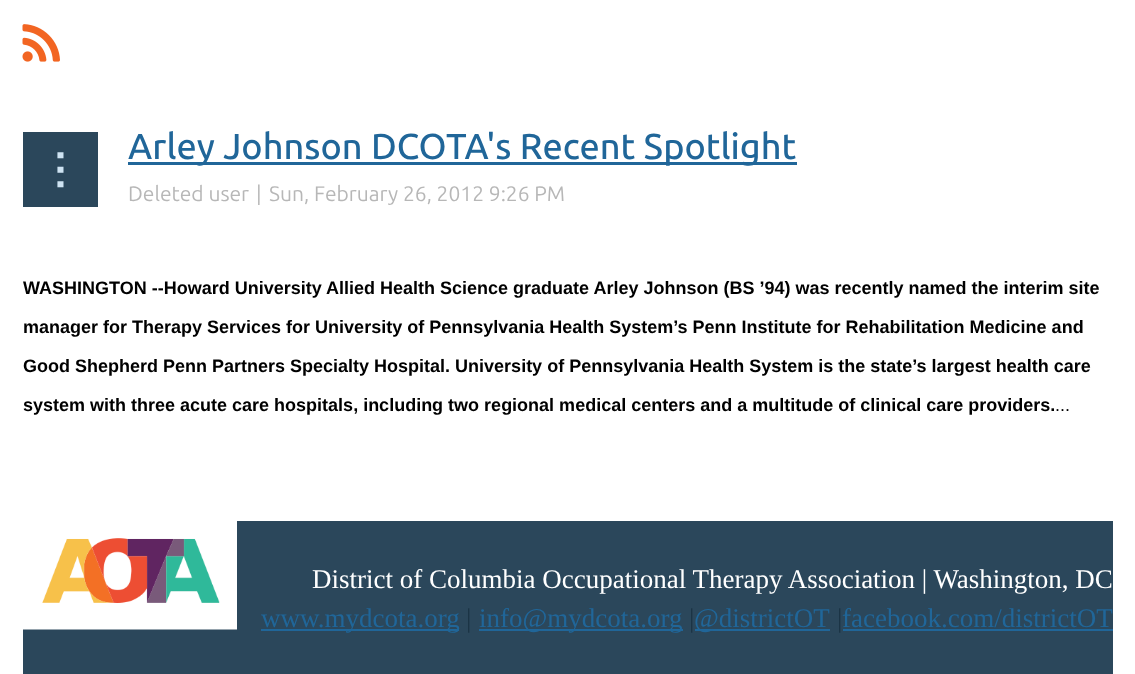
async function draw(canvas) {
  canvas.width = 1135;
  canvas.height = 674;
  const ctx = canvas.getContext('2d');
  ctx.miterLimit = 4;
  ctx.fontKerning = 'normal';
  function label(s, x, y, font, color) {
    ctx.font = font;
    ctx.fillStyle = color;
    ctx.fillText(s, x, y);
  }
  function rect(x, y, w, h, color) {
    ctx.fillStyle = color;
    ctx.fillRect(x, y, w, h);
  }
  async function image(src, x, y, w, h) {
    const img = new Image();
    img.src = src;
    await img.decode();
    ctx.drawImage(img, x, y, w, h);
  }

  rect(0, 0, 1135, 674, '#fff');
  await image('assets/img1.png', 22, 24, 38, 38);
  rect(128, 162, 669, 3, '#206699');
  label('Arley Johnson DCOTA\'s Recent Spotlight', 128, 159, '500 36px Ubuntu', '#206699');
  rect(23, 132, 75, 75, '#2b475b');
  ctx.letterSpacing = '6px';
  ctx.font = '24px Liberation Serif';
  ctx.fillStyle = '#cee3f2';
  ctx.save();
  ctx.translate(53, 151);
  ctx.rotate(90 * Math.PI / 180);
  ctx.fillText('▪▪▪', 0, 0);
  ctx.restore();
  ctx.letterSpacing = '0px';
  label('Deleted user', 128, 201, '21px Ubuntu', '#b7b7b7');
  label('|', 256, 201, '21px Ubuntu', '#b7b7b7');
  label('Sun, February 26, 2012 9:26 PM', 269, 201, '21px Ubuntu', '#b7b7b7');
  label('WASHINGTON --Howard University Allied Health Science graduate Arley Johnson (BS ’94) was recently named the interim site', 23, 294, 'bold 18px Liberation Sans', '#000');
  label('manager for Therapy Services for University of Pennsylvania Health System’s Penn Institute for Rehabilitation Medicine and', 23, 333, 'bold 18px Liberation Sans', '#000');
  label('Good Shepherd Penn Partners Specialty Hospital. University of Pennsylvania Health System is the state’s largest health care', 23, 372, 'bold 18px Liberation Sans', '#000');
  label('system with three acute care hospitals, including two regional medical centers and a multitude of clinical care providers.', 23, 411, 'bold 18px Liberation Sans', '#000');
  label('...', 1055, 411, '18px Liberation Sans', '#000');
  rect(23, 521, 1090, 153, '#2b475b');
  await image('assets/img2.png', 23, 521, 214, 109);
  label('District of Columbia Occupational Therapy Association | Washington, DC', 312, 588, '27px Liberation Serif', '#fff');
  rect(261, 629, 198, 2, '#206699');
  label('www.mydcota.org', 261, 627, '27px Liberation Serif', '#206699');
  label('|', 466, 627, '27px Liberation Serif', '#1b3445');
  rect(479, 629, 204, 2, '#206699');
  label('info@mydcota.org', 479, 627, '27px Liberation Serif', '#206699');
  label('|', 689, 627, '27px Liberation Serif', '#1b3445');
  rect(695, 629, 135, 2, '#206699');
  label('@districtOT', 694, 627, '27px Liberation Serif', '#206699');
  label('|', 837, 627, '27px Liberation Serif', '#1b3445');
  rect(843, 629, 270, 2, '#206699');
  label('facebook.com/districtOT', 842, 627, '27px Liberation Serif', '#206699');
}

draw(document.querySelector('canvas'));
